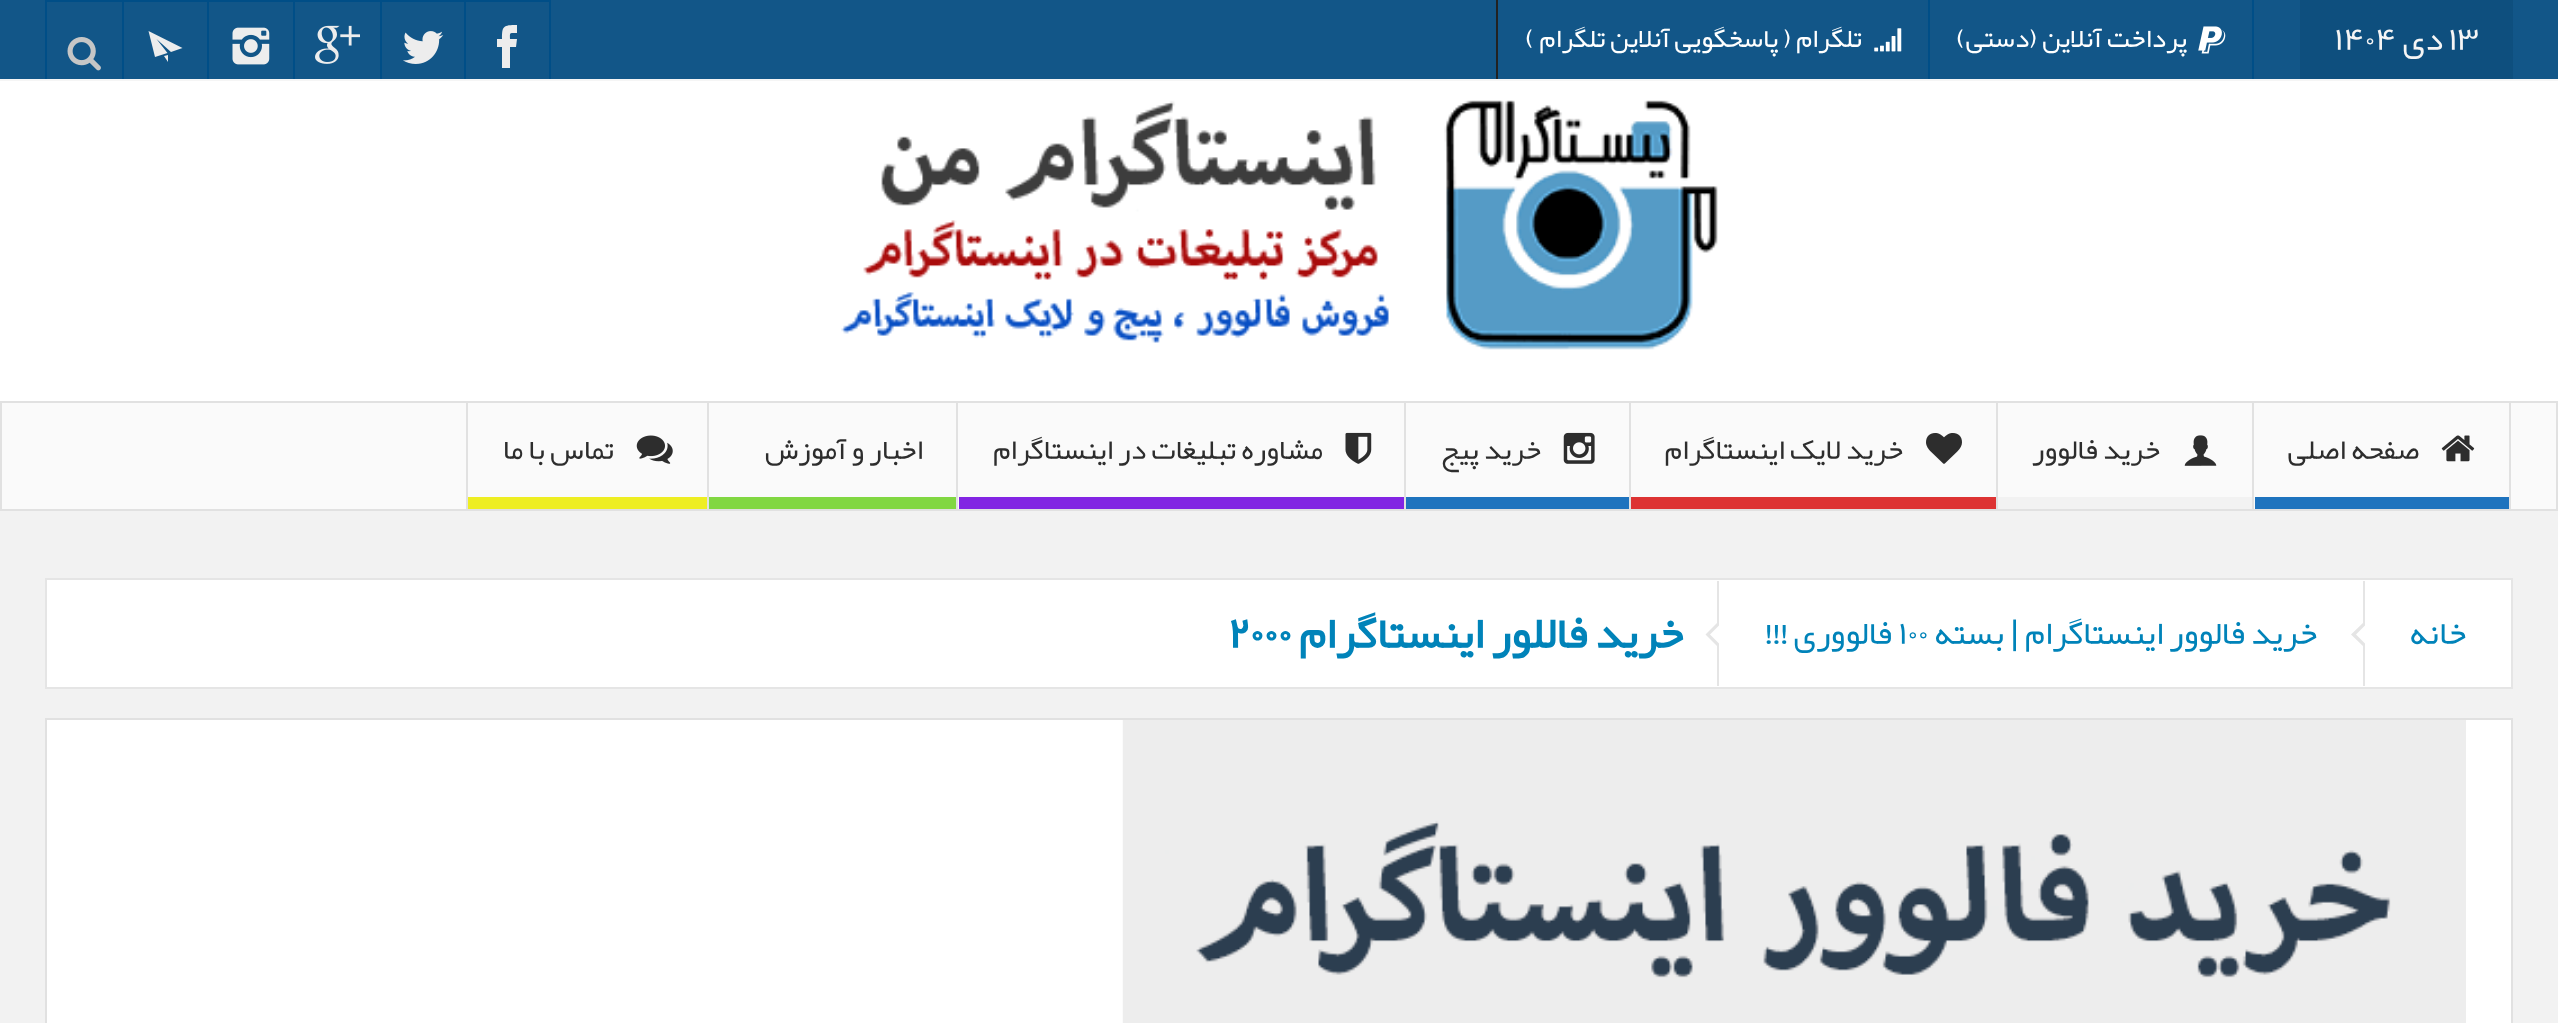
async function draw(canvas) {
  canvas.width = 2558;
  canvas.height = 1023;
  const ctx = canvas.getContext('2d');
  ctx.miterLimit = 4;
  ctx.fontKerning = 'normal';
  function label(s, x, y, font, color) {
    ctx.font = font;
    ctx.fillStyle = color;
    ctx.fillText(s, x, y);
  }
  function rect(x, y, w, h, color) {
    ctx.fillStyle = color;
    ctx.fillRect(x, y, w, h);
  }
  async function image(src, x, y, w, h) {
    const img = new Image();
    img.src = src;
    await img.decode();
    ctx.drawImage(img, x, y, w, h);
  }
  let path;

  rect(0, 0, 2558, 1023, '#f2f2f2');
  rect(0, 0, 2558, 79, '#125688');
  rect(0, 79, 2558, 2, '#f5f5f5');
  rect(2300, 0, 213, 79, '#0e4f7e');
  label('۱۳', 2448, 50, '33.75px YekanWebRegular', '#f5f5f5');
  ctx.direction = 'rtl';
  label('دی', 2443, 50, '33.75px YekanWebRegular', '#f5f5f5');
  ctx.direction = 'ltr';
  label('۱۴۰۴', 2334, 50, '33.75px YekanWebRegular', '#f5f5f5');
  rect(2252, 0, 2, 79, '#004e87');
  await image('assets/img1.png', 2198, 26, 28, 28);
  ctx.direction = 'rtl';
  label('پرداخت آنلاین (دستی)', 2187, 47, '27px YekanWebRegular', '#fff');
  rect(1928, 0, 2, 79, '#004e87');
  rect(1496, 0, 2, 79, '#222');
  await image('assets/img2.png', 1874, 28, 28, 24);
  label('تلگرام ( پاسخگویی آنلاین تلگرام )', 1862, 47, '27px YekanWebRegular', '#fff');
  rect(45, 0, 506, 2, '#004e87');
  rect(549, 0, 2, 79, '#004e87');
  rect(464, 0, 2, 79, '#004e87');
  ctx.fillStyle = '#ededed';
  path = new Path2D('M510 68H502V47H497V39H502C502 26 503 25 517 25V33C509 33 510 32 510 39H517L516 47H510Z');
  ctx.fill(path);
  rect(380, 0, 2, 79, '#004e87');
  await image('assets/img3.png', 403, 31, 41, 33);
  rect(293, 0, 2, 79, '#004e87');
  await image('assets/img4.png', 315, 25, 45, 39);
  rect(207, 0, 2, 79, '#004e87');
  await image('assets/img5.png', 232, 27, 38, 38);
  rect(122, 0, 2, 79, '#004e87');
  ctx.fillStyle = '#ededed';
  path = new Path2D('M148.5 31L155 57L167.5 53L156.5 39L171 52L182.5 48ZM168 62V55L164 56Z');
  ctx.fill(path);
  rect(45, 0, 2, 79, '#004e87');
  await image('assets/img6.png', 67, 37, 34, 34);
  rect(0, 81, 2558, 320, '#fff');
  await image('assets/img7.png', 841, 100, 877, 250);
  ctx.fillStyle = '#fafafa';
  ctx.beginPath();
  ctx.rect(1, 402, 2556, 108);
  ctx.fill();
  ctx.strokeStyle = '#e1e1e1';
  ctx.lineWidth = 2;
  ctx.stroke();
  rect(2509, 403, 2, 106, '#e1e1e1');
  await image('assets/img8.png', 2441, 435, 34, 27);
  label('صفحه اصلی', 2419, 459, '29.25px YekanWebRegular', '#2d2d2d');
  rect(2255, 497, 254, 12, '#1e73be');
  rect(2252, 403, 2, 106, '#e1e1e1');
  await image('assets/img9.png', 2184, 435, 33, 31);
  label('خرید فالوور', 2160, 459, '29.25px YekanWebRegular', '#2d2d2d');
  rect(1998, 497, 254, 12, '#f2f2f2');
  rect(1996, 403, 2, 106, '#e1e1e1');
  await image('assets/img10.png', 1926, 433, 36, 31);
  label('خرید لایک اینستاگرام', 1903, 459, '29.25px YekanWebRegular', '#2d2d2d');
  rect(1631, 497, 365, 12, '#d33');
  rect(1629, 403, 2, 106, '#e1e1e1');
  await image('assets/img11.png', 1563, 432, 32, 32);
  label('خرید پیج', 1541, 459, '29.25px YekanWebRegular', '#2d2d2d');
  rect(1406, 497, 223, 12, '#1e73be');
  rect(1404, 403, 2, 106, '#e1e1e1');
  await image('assets/img12.png', 1345, 432, 27, 32);
  label('مشاوره تبلیغات در اینستاگرام', 1323, 459, '29.25px YekanWebRegular', '#2d2d2d');
  rect(959, 497, 445, 12, '#8224e3');
  rect(956, 403, 2, 106, '#e1e1e1');
  label('اخبار و آموزش', 923, 459, '29.25px YekanWebRegular', '#2d2d2d');
  rect(709, 497, 247, 12, '#81d742');
  rect(707, 403, 2, 106, '#e1e1e1');
  rect(466, 403, 2, 106, '#e1e1e1');
  await image('assets/img13.png', 636, 435, 37, 29);
  label('تماس با ما', 614, 459, '29.25px YekanWebRegular', '#2d2d2d');
  rect(468, 497, 239, 12, '#ee2');
  ctx.fillStyle = '#fff';
  ctx.beginPath();
  ctx.rect(46, 579, 2466, 109);
  ctx.fill();
  ctx.strokeStyle = '#e5e5e5';
  ctx.stroke();
  rect(2363, 581, 2, 105, '#e5e5e5');
  label('خانه', 2466, 644, '33.75px YekanWebRegular', '#0083b9');
  ctx.fillStyle = '#e5e5e5';
  path = new Path2D('M2365 621V648L2351 634.5Z');
  ctx.fill(path);
  ctx.fillStyle = '#fff';
  path = new Path2D('M2365 625.5V643.5L2356 634.5Z');
  ctx.fill(path);
  rect(1717, 581, 2, 105, '#e5e5e5');
  label('خرید فالوور اینستاگرام', 2317, 644, '33.75px YekanWebRegular', '#0083b9');
  label('|', 2019, 644, '33.75px Liberation Sans', '#0083b9');
  ctx.direction = 'ltr';
  label('۱۰۰', 1898, 644, '33.75px YekanWebRegular', '#0083b9');
  ctx.direction = 'rtl';
  label('فالووری', 1892, 644, '33.75px YekanWebRegular', '#0083b9');
  ctx.fillStyle = '#e5e5e5';
  path = new Path2D('M1719 621V648L1705.5 634.5Z');
  ctx.fill(path);
  label('بسته', 2004, 644, '33.75px YekanWebRegular', '#0083b9');
  label('!!!', 1788, 644, '33.75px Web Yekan', '#0083b9');
  ctx.fillStyle = '#fff';
  path = new Path2D('M1719 625.5V643.5L1710 634.5Z');
  ctx.fill(path);
  label('خرید فاللور اینستاگرام', 1683, 648, 'bold 45px YekanWebRegular', '#0083b9');
  ctx.direction = 'ltr';
  label('۲۰۰۰', 1227, 648, 'bold 45px YekanWebRegular', '#0083b9');
  ctx.fillStyle = '#fff';
  ctx.beginPath();
  ctx.rect(46, 719, 2466, 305);
  ctx.fill();
  ctx.strokeStyle = '#e1e1e1';
  ctx.stroke();
  await image('assets/img14.png', 1122, 720, 1344, 303);
}

draw(document.querySelector('canvas'));
